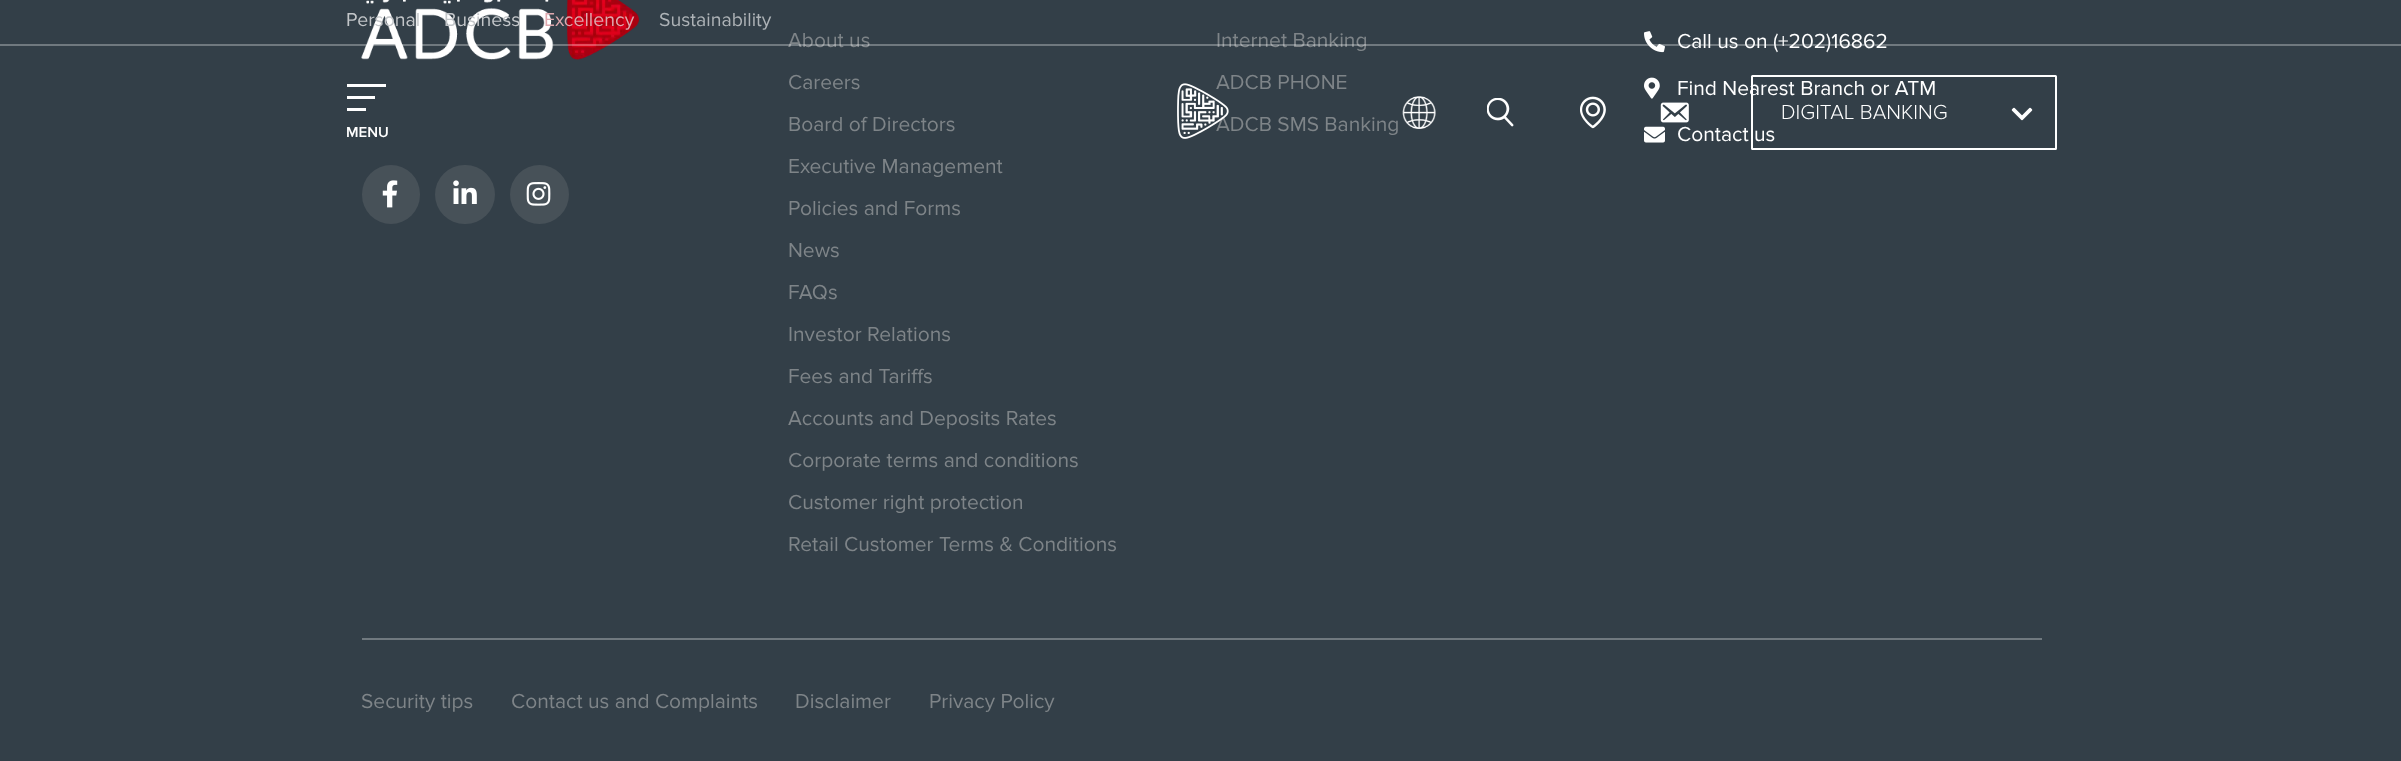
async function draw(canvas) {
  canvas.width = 2401;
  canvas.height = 761;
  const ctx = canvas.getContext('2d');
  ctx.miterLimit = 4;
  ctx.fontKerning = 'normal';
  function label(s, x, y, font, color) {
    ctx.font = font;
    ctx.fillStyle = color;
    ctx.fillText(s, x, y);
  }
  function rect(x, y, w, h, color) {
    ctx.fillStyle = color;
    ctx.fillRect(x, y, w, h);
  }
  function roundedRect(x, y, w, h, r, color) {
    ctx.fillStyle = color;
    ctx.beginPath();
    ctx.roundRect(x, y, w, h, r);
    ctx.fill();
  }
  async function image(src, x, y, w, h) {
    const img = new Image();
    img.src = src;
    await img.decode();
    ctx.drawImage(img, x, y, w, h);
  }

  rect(0, 0, 2401, 761, '#333f48');
  await image('assets/img7.png', 361, 0, 278, 60);
  label('About us', 788, 47, '21px Proxima Nova', '#7e8488');
  label('Internet Banking', 1216, 47, '21px Proxima Nova', '#7e8488');
  await image('assets/img11.png', 1644, 31, 21, 22);
  label('Call us on (+202)16862', 1677, 48, '21px Proxima Nova', '#fff');
  rect(0, 44, 2401, 2, '#ffffff4d');
  label('Personal', 346, 26, '19.5px Proxima Nova', '#c3c6c9');
  label('Business', 444, 26, '19.5px Proxima Nova', '#c3c6c9');
  label('Excellency', 544, 26, '19.5px Proxima Nova', '#dea8ae');
  label('Sustainability', 659, 26, '19.5px Proxima Nova', '#adb2b6');
  label('ADCB PHONE', 1216, 89, '21px Proxima Nova', '#7e8488');
  label('ADCB SMS Banking', 1216, 131, '21px Proxima Nova', '#7e8488');
  await image('assets/img1.png', 1177, 83, 52, 56);
  await image('assets/img2.png', 1402, 96, 34, 33);
  await image('assets/img3.png', 1487, 98, 27, 29);
  await image('assets/img4.png', 1580, 96, 26, 33);
  await image('assets/img5.png', 1660, 102, 29, 21);
  ctx.beginPath();
  ctx.roundRect(1752, 76, 304, 73, 0.5);
  ctx.strokeStyle = '#fff';
  ctx.lineWidth = 2;
  ctx.stroke();
  label('DIGITAL BANKING', 1781, 119, '300 21px Proxima Nova', '#fff');
  await image('assets/img6.png', 2011, 107, 22, 14);
  rect(347, 84, 39, 3, '#fff');
  rect(347, 96, 28, 3, '#fff');
  rect(347, 108, 19, 3, '#fff');
  label('MENU', 346, 137, '600 15px Proxima Nova', '#fff');
  roundedRect(362, 165, 58, 59, 29, '#475158');
  await image('assets/img8.png', 382, 180, 16, 28);
  roundedRect(435, 165, 60, 59, 29.5, '#475158');
  await image('assets/img9.png', 453, 180, 24, 24);
  ctx.beginPath();
  ctx.arc(539.5, 194.5, 29.5, 0, 2 * Math.PI);
  ctx.fill();
  await image('assets/img10.png', 526, 182, 25, 24);
  label('Careers', 788, 89, '21px Proxima Nova', '#7e8488');
  label('Board of Directors', 788, 131, '21px Proxima Nova', '#7e8488');
  label('Executive Management', 788, 173, '21px Proxima Nova', '#7e8488');
  label('Policies and Forms', 788, 215, '21px Proxima Nova', '#7e8488');
  label('News', 788, 257, '21px Proxima Nova', '#7e8488');
  label('FAQs', 788, 299, '21px Proxima Nova', '#7e8488');
  label('Investor Relations', 788, 341, '21px Proxima Nova', '#7e8488');
  label('Fees and Tariffs', 788, 383, '21px Proxima Nova', '#7e8488');
  label('Accounts and Deposits Rates', 788, 425, '21px Proxima Nova', '#7e8488');
  label('Corporate terms and conditions', 788, 467, '21px Proxima Nova', '#7e8488');
  label('Customer right protection', 788, 509, '21px Proxima Nova', '#7e8488');
  label('Retail Customer Terms & Conditions', 788, 551, '21px Proxima Nova', '#7e8488');
  await image('assets/img12.png', 1644, 77, 16, 22);
  label('Find Nearest Branch or ATM', 1677, 95, '21px Proxima Nova', '#fff');
  await image('assets/img13.png', 1644, 126, 21, 17);
  label('Contact us', 1677, 141, '21px Proxima Nova', '#fff');
  rect(362, 638, 1680, 2, '#70797f');
  label('Security tips', 361, 708, '21px Proxima Nova', '#7e8488');
  label('Contact us and Complaints', 511, 708, '21px Proxima Nova', '#7e8488');
  label('Disclaimer', 795, 708, '21px Proxima Nova', '#7e8488');
  label('Privacy Policy', 929, 708, '21px Proxima Nova', '#7e8488');
}

draw(document.querySelector('canvas'));
